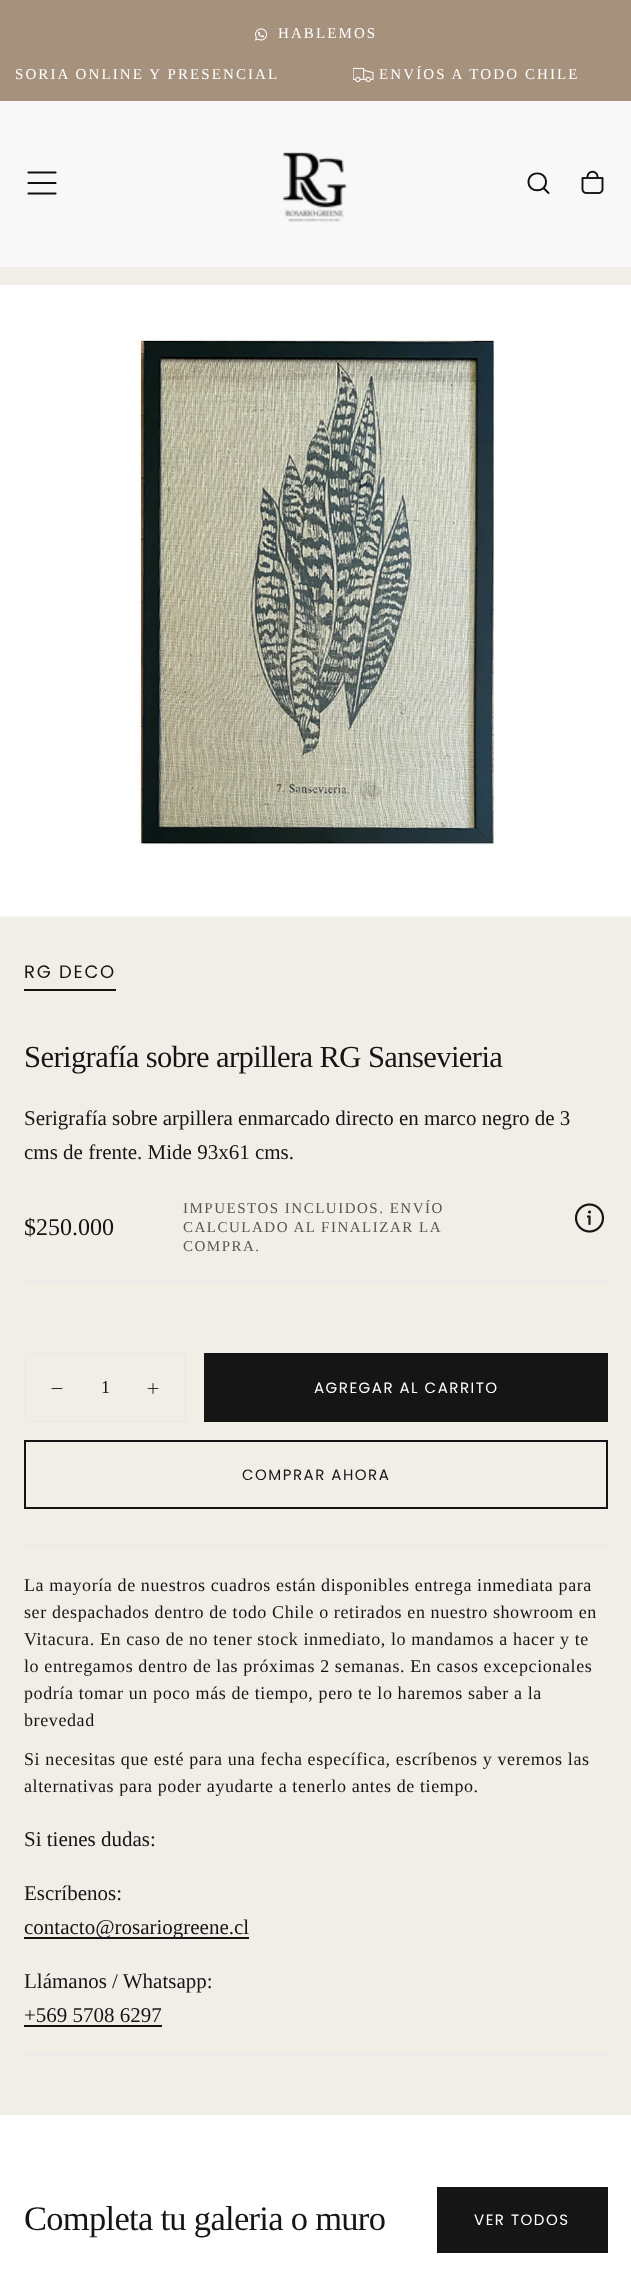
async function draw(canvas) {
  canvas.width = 631;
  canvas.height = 2281;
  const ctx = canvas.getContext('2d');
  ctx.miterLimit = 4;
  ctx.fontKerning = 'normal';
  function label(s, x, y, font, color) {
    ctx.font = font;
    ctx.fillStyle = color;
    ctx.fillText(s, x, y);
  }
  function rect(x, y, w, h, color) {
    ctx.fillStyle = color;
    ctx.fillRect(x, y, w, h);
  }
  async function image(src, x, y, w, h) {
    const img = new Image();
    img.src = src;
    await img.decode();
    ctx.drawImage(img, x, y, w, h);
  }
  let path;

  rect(0, 0, 631, 2281, '#f1ede7');
  rect(0, 0, 631, 101, '#a6917c');
  await image('assets/img1.png', 255, 28, 13, 13);
  ctx.letterSpacing = '2.1px';
  label('HABLEMOS', 278, 38, '15px Liberation Serif', '#fff');
  label('SORIA ONLINE Y PRESENCIAL', 15, 79, '15px Liberation Serif', '#fff');
  await image('assets/img2.png', 353, 67, 21, 16);
  label('ENVÍOS A TODO CHILE', 379, 79, '15px Liberation Serif', '#fff');
  rect(0, 101, 631, 166, '#f8f8f8');
  path = new Path2D('M28.5 183H55.5M28.5 172.5H55.5M28.5 193.5H55.5');
  ctx.strokeStyle = '#111';
  ctx.lineWidth = 2.2;
  ctx.lineCap = 'round';
  ctx.stroke(path);
  await image('assets/img3.png', 283, 152, 64, 70);
  path = new Path2D('M548.5 193L543.5 188M546 182C546 193 528.5 193 528.5 182C528.5 170.5 546 170.5 546 182Z');
  ctx.lineWidth = 1.9;
  ctx.stroke(path);
  await image('assets/img4.png', 581, 170, 23, 24);
  rect(0, 916, 631, 1, '#f4f4f4');
  await image('assets/img5.png', 0, 285, 631, 631);
  ctx.letterSpacing = '1.75px';
  label('RG DECO', 24, 978, '18px Poppins', '#151515');
  rect(24, 989, 92, 2, '#151515');
  ctx.letterSpacing = '-0.6px';
  label('Serigrafía sobre arpillera RG Sansevieria', 24, 1067, '30.6px Liberation Serif', '#151515');
  ctx.letterSpacing = '0px';
  label('Serigrafía sobre arpillera enmarcado directo en marco negro de 3', 24, 1125, '21px Liberation Serif', '#151515');
  label('cms de frente. Mide 93x61 cms.', 24, 1159, '21px Liberation Serif', '#151515');
  label('$250.000', 24, 1235, '24px Liberation Serif', '#151515');
  ctx.letterSpacing = '1.5px';
  label('IMPUESTOS INCLUIDOS. ENVÍO', 183, 1213, '15px Liberation Serif', '#575654');
  label('CALCULADO AL FINALIZAR LA', 183, 1232, '15px Liberation Serif', '#575654');
  label('COMPRA.', 183, 1251, '15px Liberation Serif', '#575654');
  await image('assets/img6.png', 574, 1203, 31, 30);
  rect(24, 1280, 584, 2, '#ebebeb');
  ctx.strokeStyle = '#ebebeb';
  ctx.lineWidth = 2;
  ctx.strokeRect(25, 1354, 160, 67);
  path = new Path2D('M52 1388.5H62');
  ctx.strokeStyle = '#151515';
  ctx.lineWidth = 0.9;
  ctx.stroke(path);
  ctx.letterSpacing = '0px';
  label('1', 101, 1393, '18px Liberation Serif', '#151515');
  await image('assets/img7.png', 147, 1383, 12, 11);
  rect(204, 1353, 404, 69, '#151515');
  ctx.letterSpacing = '1.5px';
  label('AGREGAR AL CARRITO', 314, 1393, '15px Poppins', '#fff');
  ctx.lineWidth = 2;
  ctx.strokeRect(25, 1441, 582, 67);
  label('COMPRAR AHORA', 242, 1480, '15px Poppins', '#151515');
  rect(24, 1545, 584, 2, '#ebebeb');
  ctx.letterSpacing = '0.6px';
  label('La mayoría de nuestros cuadros están disponibles entrega inmediata para', 24, 1591, '18px Liberation Serif', '#151515');
  label('ser despachados dentro de todo Chile o retirados en nuestro showroom en', 24, 1618, '18px Liberation Serif', '#151515');
  label('Vitacura. En caso de no tener stock inmediato, lo mandamos a hacer y te', 24, 1645, '18px Liberation Serif', '#151515');
  label('lo entregamos dentro de las próximas 2 semanas. En casos excepcionales', 24, 1672, '18px Liberation Serif', '#151515');
  label('podría tomar un poco más de tiempo, pero te lo haremos saber a la', 24, 1699, '18px Liberation Serif', '#151515');
  label('brevedad', 24, 1726, '18px Liberation Serif', '#151515');
  label('Si necesitas que esté para una fecha específica, escríbenos y veremos las', 24, 1765, '18px Liberation Serif', '#151515');
  label('alternativas para poder ayudarte a tenerlo antes de tiempo.', 24, 1792, '18px Liberation Serif', '#151515');
  ctx.letterSpacing = '0px';
  label('Si tienes dudas:', 24, 1846, '21px Liberation Serif', '#151515');
  label('Escríbenos:', 24, 1900, '21px Liberation Serif', '#151515');
  rect(24, 1937, 225, 2, '#151515');
  label('contacto@rosariogreene.cl', 24, 1934, '21px Liberation Serif', '#151515');
  label('Llámanos / Whatsapp:', 24, 1988, '21px Liberation Serif', '#151515');
  label('+569 5708 6297', 24, 2022, '21px Liberation Serif', '#151515');
  rect(24, 2025, 138, 2, '#151515');
  rect(24, 2054, 584, 2, '#ebebeb');
  rect(0, 2115, 631, 166, '#fff');
  ctx.letterSpacing = '-0.7px';
  label('Completa tu galeria o muro', 24, 2230, '34.5px Liberation Serif', '#151515');
  rect(437, 2187, 171, 66, '#151515');
  ctx.letterSpacing = '1.5px';
  label('VER TODOS', 474, 2225, '15px Poppins', '#fff');
}

draw(document.querySelector('canvas'));
